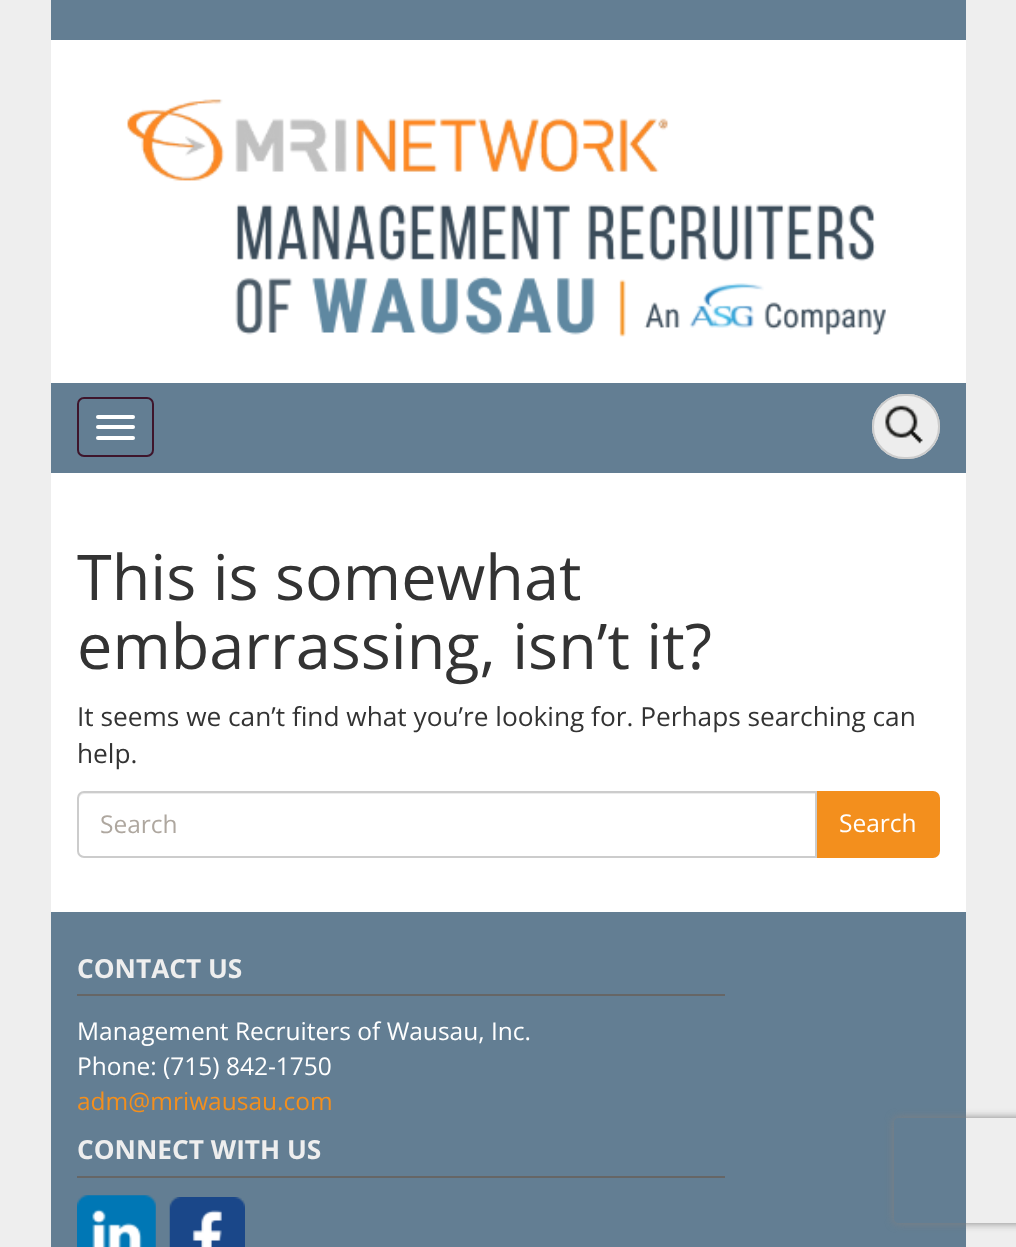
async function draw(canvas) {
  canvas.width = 1016;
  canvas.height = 1247;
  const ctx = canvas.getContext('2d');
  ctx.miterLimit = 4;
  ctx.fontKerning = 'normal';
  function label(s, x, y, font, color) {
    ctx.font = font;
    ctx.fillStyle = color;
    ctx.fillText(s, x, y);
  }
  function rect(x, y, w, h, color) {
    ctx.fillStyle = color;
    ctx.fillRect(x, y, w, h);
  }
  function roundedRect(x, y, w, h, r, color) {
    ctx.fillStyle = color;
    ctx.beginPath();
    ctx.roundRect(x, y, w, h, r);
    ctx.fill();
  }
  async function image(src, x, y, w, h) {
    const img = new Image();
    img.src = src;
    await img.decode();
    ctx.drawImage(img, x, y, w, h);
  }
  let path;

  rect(0, 0, 1016, 1247, '#eee');
  rect(51, 40, 915, 872, '#fff');
  rect(51, 0, 915, 40, '#637e93');
  await image('assets/img1.png', 127, 99, 759, 238);
  rect(51, 383, 915, 90, '#637e93');
  ctx.beginPath();
  ctx.roundRect(78, 398, 75, 58, 6);
  ctx.strokeStyle = '#3e152b';
  ctx.lineWidth = 2;
  ctx.stroke();
  roundedRect(96, 415, 39, 4, 2, '#fff');
  roundedRect(96, 425, 39, 4, 2, '#fff');
  roundedRect(96, 436, 39, 4, 2, '#fff');
  roundedRect(872, 394, 68, 65, 32.5, '#ededed');
  await image('assets/img2.png', 885, 405, 38, 39);
  ctx.beginPath();
  ctx.roundRect(873, 395, 66, 63, 31.5);
  ctx.strokeStyle = '#ccc';
  ctx.stroke();
  label('This is somewhat', 77, 600, '63px Open Sans', '#333');
  label('embarrassing, isn’t it?', 77, 669, '63px Open Sans', '#333');
  label('It seems we can’t find what you’re looking for. Perhaps searching can', 77, 726, '26.25px Open Sans', '#333');
  label('help.', 77, 763, '26.25px Open Sans', '#333');
  ctx.fillStyle = '#ececec';
  path = new Path2D('M84 794H816V793H84C81 793 79 795 79 798V800C79 797 81 794 84 794Z');
  ctx.fill(path);
  ctx.beginPath();
  ctx.roundRect(78, 792, 738, 65, [6, 0, 0, 6]);
  ctx.stroke();
  label('Search', 100, 833, '24.5px Open Sans', '#aea79f');
  ctx.fillStyle = '#f38f1d';
  ctx.beginPath();
  ctx.roundRect(818, 792, 121, 65, [0, 6, 6, 0]);
  ctx.fill();
  ctx.strokeStyle = '#f38f1d';
  ctx.stroke();
  label('Search', 839, 832, '24.5px Open Sans', '#fff');
  rect(51, 912, 915, 335, '#637e93');
  label('CONTACT US', 77, 978, 'bold 26.25px Open Sans', '#eee');
  rect(77, 994, 648, 2, '#666');
  label('Management Recruiters of Wausau, Inc.', 77, 1040, '24.5px Open Sans', '#fff');
  label('Phone: (715) 842-1750', 77, 1075, '24.5px Open Sans', '#fff');
  label('adm@mriwausau.com', 77, 1110, '24.5px Open Sans', '#f38f1d');
  label('CONNECT WITH US', 77, 1159, 'bold 26.25px Open Sans', '#eee');
  rect(77, 1176, 648, 2, '#666');
  await image('assets/img3.png', 77, 1195, 79, 52);
  await image('assets/img4.png', 169, 1197, 76, 50);
  ctx.save();
  path = new Path2D('M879 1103H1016V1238H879ZM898 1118H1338C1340 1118 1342 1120 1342 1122V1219C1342 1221 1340 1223 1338 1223H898C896 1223 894 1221 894 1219V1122C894 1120 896 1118 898 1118Z');
  ctx.clip(path, 'evenodd');
  ctx.fillStyle = '#808080';
  ctx.filter = 'blur(4.5px)';
  ctx.beginPath();
  ctx.roundRect(894, 1118, 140, 105, 4);
  ctx.fill();
  ctx.filter = 'none';
  ctx.restore();
}

draw(document.querySelector('canvas'));
